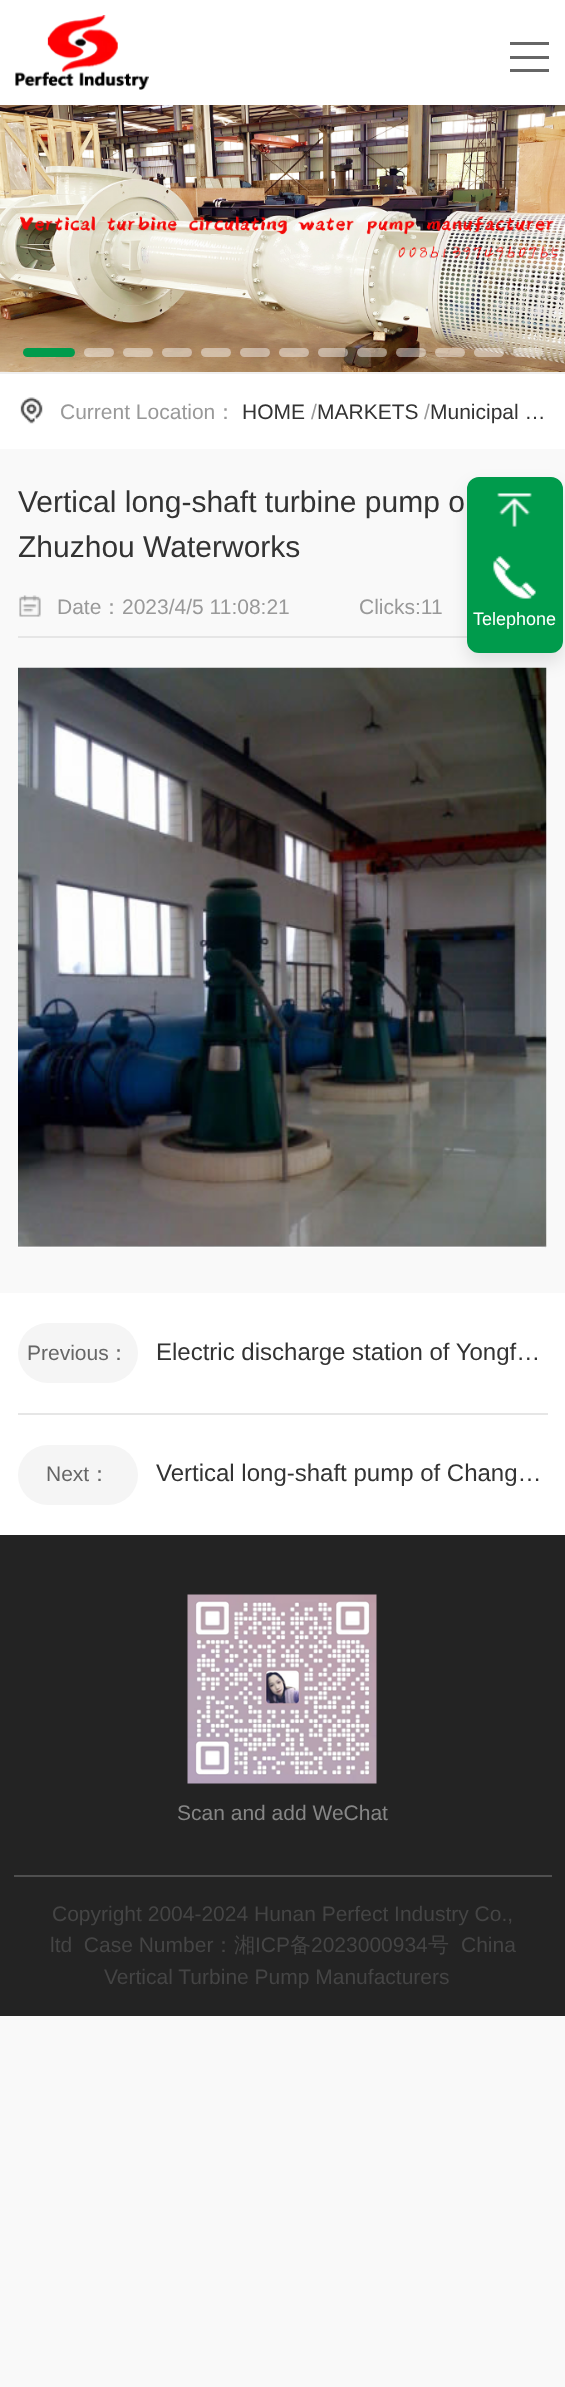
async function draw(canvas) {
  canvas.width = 565;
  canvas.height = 2387;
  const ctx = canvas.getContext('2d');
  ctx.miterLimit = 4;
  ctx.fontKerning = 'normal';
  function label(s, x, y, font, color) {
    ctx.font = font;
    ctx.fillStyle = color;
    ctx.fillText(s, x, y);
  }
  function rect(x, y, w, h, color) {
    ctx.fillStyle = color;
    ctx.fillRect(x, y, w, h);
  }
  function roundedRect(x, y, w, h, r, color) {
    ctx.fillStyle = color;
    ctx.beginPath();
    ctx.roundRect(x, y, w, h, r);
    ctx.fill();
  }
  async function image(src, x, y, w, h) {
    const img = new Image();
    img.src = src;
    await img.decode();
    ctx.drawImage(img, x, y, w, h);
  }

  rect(0, 0, 565, 2387, '#f9f9f9');
  rect(0, 0, 565, 105, '#fff');
  await image('assets/img1.png', 15, 15, 134, 75);
  rect(510, 42, 39, 3, '#666');
  rect(510, 56, 39, 3, '#666');
  rect(510, 69, 39, 3, '#666');
  await image('assets/img2.png', 0, 105, 565, 267);
  roundedRect(23, 348, 52, 9, 4.5, '#009b4c');
  roundedRect(84, 348, 30, 9, 4.5, '#ffffff73');
  roundedRect(123, 348, 30, 9, 4.5, '#ffffff73');
  roundedRect(162, 348, 30, 9, 4.5, '#ffffff73');
  roundedRect(201, 348, 30, 9, 4.5, '#ffffff73');
  roundedRect(240, 348, 30, 9, 4.5, '#ffffff73');
  roundedRect(279, 348, 30, 9, 4.5, '#ffffff73');
  roundedRect(318, 348, 30, 9, 4.5, '#ffffff73');
  roundedRect(357, 348, 30, 9, 4.5, '#ffffff73');
  roundedRect(396, 348, 30, 9, 4.5, '#ffffff73');
  roundedRect(435, 348, 30, 9, 4.5, '#ffffff73');
  roundedRect(474, 348, 30, 9, 4.5, '#ffffff73');
  roundedRect(513, 348, 30, 9, 4.5, '#ffffff73');
  rect(0, 374, 565, 75, '#fff');
  rect(0, 372, 565, 2, '#f0f0f0');
  await image('assets/img3.png', 20, 397, 23, 27);
  label('Current Location', 60, 419, '21px Liberation Sans', '#999');
  label('：', 215, 419, '500 21px WenQuanYi Zen Hei', '#999');
  label('HOME', 242, 419, '21px Liberation Sans', '#333');
  label('/', 311, 419, '21px Liberation Sans', '#999');
  label('MARKETS', 317, 419, '21px Liberation Sans', '#333');
  label('/', 424, 419, '21px Liberation Sans', '#999');
  label('Municipal …', 430, 419, '21px Liberation Sans', '#333');
  label('Vertical long-shaft turbine pump o', 18, 512, '30px Liberation Sans', '#333');
  label('Zhuzhou Waterworks', 18, 557, '30px Liberation Sans', '#333');
  rect(18, 636, 449, 2, '#e6e6e6');
  await image('assets/img4.png', 19, 595, 22, 22);
  label('Date', 57, 614, '21px Liberation Sans', '#999');
  label('：', 101, 614, '500 21px WenQuanYi Zen Hei', '#999');
  label('2023/4/5 11:08:21', 122, 614, '21px Liberation Sans', '#999');
  label('Clicks:11', 359, 614, '21px Liberation Sans', '#999');
  await image('assets/img5.png', 18, 667, 529, 581);
  rect(0, 1535, 565, 481, '#232323');
  ctx.fillStyle = '#0000001a';
  ctx.filter = 'blur(9px)';
  ctx.beginPath();
  ctx.roundRect(467, 486, 96, 176, 12);
  ctx.fill();
  ctx.filter = 'none';
  ctx.fillStyle = '#009b4c';
  ctx.beginPath();
  ctx.roundRect(468.5, 478.5, 93, 173, 10.5);
  ctx.fill();
  ctx.strokeStyle = '#009b4c';
  ctx.lineWidth = 3;
  ctx.stroke();
  await image('assets/img6.png', 497, 493, 35, 34);
  await image('assets/img7.png', 493, 556, 43, 43);
  label('Telephone', 473, 625, '18px Liberation Sans', '#fff');
  await image('assets/img8.png', 187, 1594, 190, 190);
  label('Scan and add WeChat', 177, 1820, '21px Liberation Sans', '#868686');
  rect(14, 1875, 538, 2, '#4f4f4f');
  label('Copyright 2004-2024 Hunan Perfect Industry Co.,', 52, 1921, '21px Liberation Sans', '#444');
  label('ltd  Case Number', 50, 1952, '21px Liberation Sans', '#444');
  label('：湘', 213, 1952, '500 21px WenQuanYi Zen Hei', '#444');
  label('ICP', 255, 1952, '21px Liberation Sans', '#444');
  label('备', 290, 1952, '500 21px WenQuanYi Zen Hei', '#444');
  label('2023000934', 311, 1952, '21px Liberation Sans', '#444');
  label('号', 428, 1952, '500 21px WenQuanYi Zen Hei', '#444');
  label('China', 461, 1952, '21px Liberation Sans', '#444');
  label('Vertical Turbine Pump Manufacturers', 104, 1984, '21px Liberation Sans', '#444');
  rect(0, 1293, 565, 242, '#fff');
  rect(18, 1413, 530, 2, '#e6e6e6');
  roundedRect(18, 1323, 120, 60, 30, '#f5f5f5');
  label('Previous', 27, 1360, '21px Liberation Sans', '#666');
  label('：', 108, 1360, '500 21px WenQuanYi Zen Hei', '#666');
  label('Electric discharge station of Yongf…', 156, 1360, '24px Liberation Sans', '#333');
  roundedRect(18, 1445, 120, 60, 30, '#f5f5f5');
  label('Next', 46, 1481, '21px Liberation Sans', '#666');
  label('：', 89, 1481, '500 21px WenQuanYi Zen Hei', '#666');
  label('Vertical long-shaft pump of Chang…', 156, 1481, '24px Liberation Sans', '#333');
}

draw(document.querySelector('canvas'));
